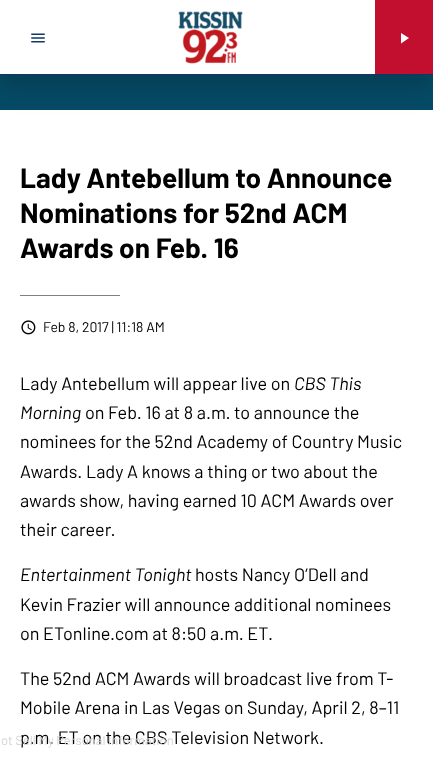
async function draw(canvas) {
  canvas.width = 433;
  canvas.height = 775;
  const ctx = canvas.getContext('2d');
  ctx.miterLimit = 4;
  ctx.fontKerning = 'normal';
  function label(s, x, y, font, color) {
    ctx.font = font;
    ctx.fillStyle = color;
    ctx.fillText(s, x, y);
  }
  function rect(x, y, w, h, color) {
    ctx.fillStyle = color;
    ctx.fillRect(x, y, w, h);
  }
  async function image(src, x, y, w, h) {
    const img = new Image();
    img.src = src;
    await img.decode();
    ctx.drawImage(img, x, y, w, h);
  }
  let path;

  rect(0, 0, 433, 775, '#064b66');
  rect(0, 110, 433, 665, '#fff');
  ctx.fillStyle = '#00000029';
  ctx.filter = 'blur(12.5px)';
  ctx.beginPath();
  ctx.rect(0, 14, 433, 75);
  ctx.fill();
  ctx.filter = 'none';
  rect(0, 0, 375, 74, '#fff');
  rect(0, 74, 433, 1, '#103566');
  await image('assets/img1.png', 31, 33, 14, 10);
  await image('assets/img2.png', 178, 11, 65, 53);
  rect(375, 0, 58, 74, '#c20f2f');
  ctx.fillStyle = '#fff';
  path = new Path2D('M401 33V43.5L409 38Z');
  ctx.fill(path);
  label('Lady Antebellum to Announce', 20, 188, 'bold 28px Barlow', '#000');
  label('Nominations for 52nd ACM', 20, 223, 'bold 28px Barlow', '#000');
  label('Awards on Feb. 16', 20, 258, 'bold 28px Barlow', '#000');
  rect(20, 295, 100, 1, '#808080');
  await image('assets/img3.png', 21, 320, 15, 15);
  label('Feb 8, 2017 | 11:18 AM', 43, 332, '14px Barlow', '#000');
  label('Lady Antebellum will appear live on', 20, 390, '18px Barlow', '#000');
  label('CBS This', 294, 390, 'italic 18px Barlow', '#000');
  label('Morning', 20, 419, 'italic 18px Barlow', '#000');
  label('on Feb. 16 at 8 a.m. to announce the', 85, 419, '18px Barlow', '#000');
  label('nominees for the 52nd Academy of Country Music', 20, 448, '18px Barlow', '#000');
  label('Awards. Lady A knows a thing or two about the', 20, 478, '18px Barlow', '#000');
  label('awards show, having earned 10 ACM Awards over', 20, 507, '18px Barlow', '#000');
  label('their career.', 20, 536, '18px Barlow', '#000');
  label('Entertainment Tonight', 20, 581, 'italic 18px Barlow', '#000');
  label('hosts Nancy O’Dell and', 195, 581, '18px Barlow', '#000');
  label('Kevin Frazier will announce additional nominees', 20, 611, '18px Barlow', '#000');
  label('on ETonline.com at 8:50 a.m. ET.', 20, 640, '18px Barlow', '#000');
  label('The 52nd ACM Awards will broadcast live from T-', 20, 685, '18px Barlow', '#000');
  label('Mobile Arena in Las Vegas on Sunday, April 2, 8–11', 20, 714, '18px Barlow', '#000');
  label('p.m. ET on the CBS Television Network.', 20, 744, '18px Barlow', '#000');
  label('ot Sell My Personal Information', 1, 745, '13px Barlow', '#d4d4d4');
}

draw(document.querySelector('canvas'));
